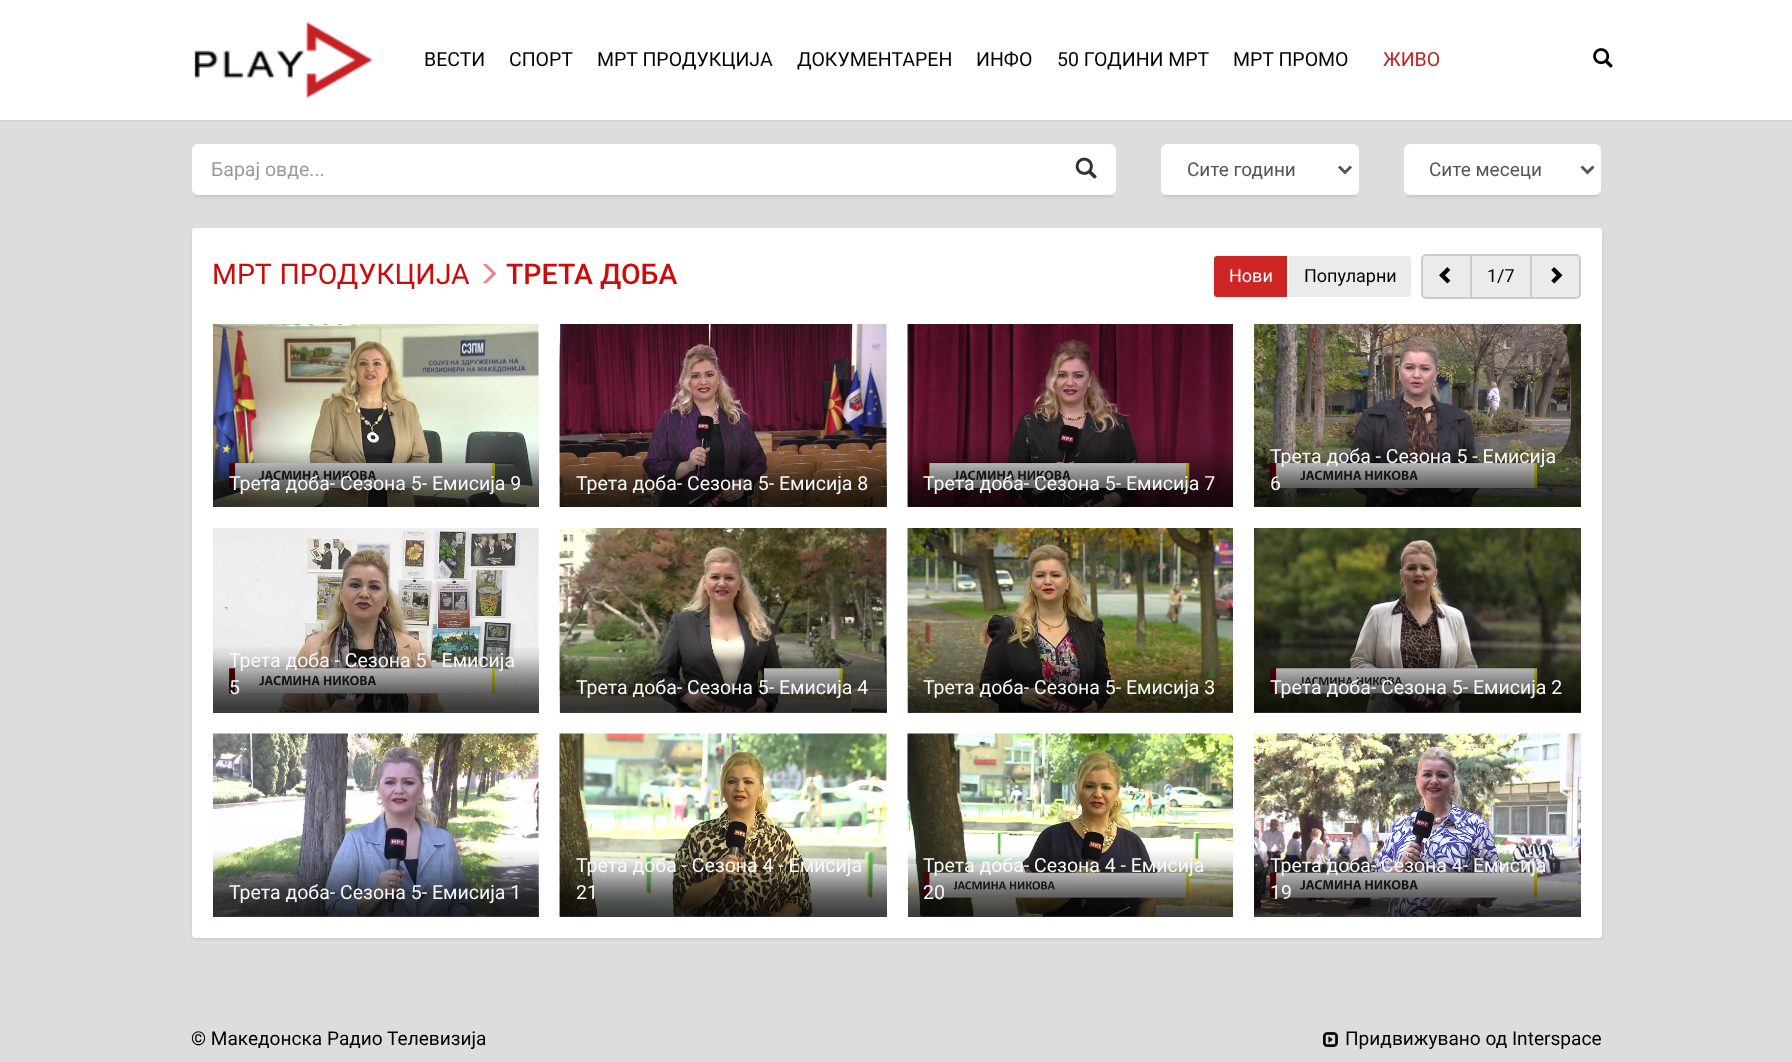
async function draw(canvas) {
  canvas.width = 1792;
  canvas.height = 1062;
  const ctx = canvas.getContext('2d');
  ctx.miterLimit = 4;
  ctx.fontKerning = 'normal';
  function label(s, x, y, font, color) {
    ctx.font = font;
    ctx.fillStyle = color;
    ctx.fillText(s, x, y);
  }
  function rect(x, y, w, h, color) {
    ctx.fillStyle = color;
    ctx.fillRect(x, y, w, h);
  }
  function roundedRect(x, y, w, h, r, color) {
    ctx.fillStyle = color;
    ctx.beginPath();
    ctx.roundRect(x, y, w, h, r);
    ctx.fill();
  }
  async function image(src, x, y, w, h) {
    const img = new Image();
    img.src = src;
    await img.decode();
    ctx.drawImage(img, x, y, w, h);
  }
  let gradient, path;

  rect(0, 0, 1792, 1062, '#ddd');
  rect(0, 0, 1792, 120, '#fff');
  rect(0, 120, 1792, 2, '#d4d4d4');
  await image('assets/img1.png', 194, 22, 179, 76);
  label('ВЕСТИ', 424, 66, '19.5px Roboto', '#000');
  label('СПОРТ', 509, 66, '19.5px Roboto', '#000');
  label('МРТ ПРОДУКЦИЈА', 597, 66, '19.5px Roboto', '#000');
  label('ДОКУМЕНТАРЕН', 797, 66, '19.5px Roboto', '#000');
  label('ИНФО', 976, 66, '19.5px Roboto', '#000');
  label('50 ГОДИНИ МРТ', 1057, 66, '19.5px Roboto', '#000');
  label('МРТ ПРОМО', 1233, 66, '19.5px Roboto', '#000');
  label('ЖИВО', 1383, 66, '19.5px Roboto', '#c52026');
  await image('assets/img2.png', 1593, 48, 20, 20);
  ctx.fillStyle = '#0000001a';
  ctx.filter = 'blur(1.5px)';
  ctx.beginPath();
  ctx.rect(195, 152, 918, 45);
  ctx.fill();
  ctx.filter = 'none';
  ctx.fillStyle = '#fff';
  ctx.beginPath();
  ctx.roundRect(193, 145, 864, 49, [5, 0, 0, 5]);
  ctx.fill();
  ctx.strokeStyle = '#fff';
  ctx.lineWidth = 2;
  ctx.stroke();
  label('Барај овде...', 211, 176, '19.5px Roboto', '#999');
  ctx.fillStyle = '#fff';
  ctx.beginPath();
  ctx.roundRect(1057, 145, 58, 49, [0, 5, 5, 0]);
  ctx.fill();
  ctx.stroke();
  await image('assets/img3.png', 1075, 157, 22, 22);
  ctx.fillStyle = '#0000001a';
  ctx.filter = 'blur(1.5px)';
  ctx.beginPath();
  ctx.rect(1164, 152, 192, 45);
  ctx.fill();
  ctx.filter = 'none';
  ctx.fillStyle = '#fff';
  ctx.beginPath();
  ctx.roundRect(1162, 145, 196, 49, 5);
  ctx.fill();
  ctx.stroke();
  path = new Path2D('M1339 166.5L1345 172.5L1351 166.5');
  ctx.strokeStyle = '#555';
  ctx.lineWidth = 3;
  ctx.stroke(path);
  label('Сите години', 1187, 176, '19px Roboto', '#555');
  ctx.fillStyle = '#0000001a';
  ctx.filter = 'blur(1.5px)';
  ctx.beginPath();
  ctx.rect(1407, 152, 191, 45);
  ctx.fill();
  ctx.filter = 'none';
  ctx.fillStyle = '#fff';
  ctx.beginPath();
  ctx.roundRect(1405, 145, 195, 49, 5);
  ctx.fill();
  ctx.strokeStyle = '#fff';
  ctx.lineWidth = 2;
  ctx.stroke();
  path = new Path2D('M1581.5 166.5L1587.5 172.5L1593.5 166.5');
  ctx.strokeStyle = '#555';
  ctx.lineWidth = 3;
  ctx.stroke(path);
  label('Сите месеци', 1429, 176, '19px Roboto', '#555');
  ctx.fillStyle = '#0000001a';
  ctx.filter = 'blur(1.5px)';
  ctx.beginPath();
  ctx.roundRect(192, 230, 1410, 709, 3);
  ctx.fill();
  ctx.filter = 'none';
  roundedRect(192, 228, 1410, 710, 3, '#fff');
  ctx.wordSpacing = '1px';
  label('МРТ ПРОДУКЦИЈА', 212, 284, '28.5px Roboto', '#cc0c0c');
  await image('assets/img4.png', 483, 264, 13, 20);
  ctx.wordSpacing = '0px';
  label('ТРЕТА ДОБА', 506, 284, '500 28.5px Roboto', '#cc0c0c');
  ctx.fillStyle = '#ebebeb';
  ctx.beginPath();
  ctx.roundRect(1288, 255, 124, 43, [0, 4, 4, 0]);
  ctx.fill();
  ctx.strokeStyle = '#fff';
  ctx.lineWidth = 2;
  ctx.stroke();
  ctx.fillStyle = '#cf2525';
  ctx.beginPath();
  ctx.roundRect(1213, 255, 75, 43, [4, 0, 0, 4]);
  ctx.fill();
  ctx.stroke();
  label('Нови', 1229, 282, '18px Roboto', '#fff');
  label('Популарни', 1304, 282, '18px Roboto', '#000');
  ctx.fillStyle = '#ebebeb';
  ctx.beginPath();
  ctx.roundRect(1422, 255, 49, 43, [4, 0, 0, 4]);
  ctx.fill();
  ctx.strokeStyle = '#ccc';
  ctx.stroke();
  await image('assets/img5.png', 1439, 267, 12, 17);
  ctx.beginPath();
  ctx.rect(1471, 255, 60, 43);
  ctx.fill();
  ctx.stroke();
  label('1/7', 1487, 282, '18px Roboto', '#000');
  ctx.fillStyle = '#ebebeb';
  ctx.beginPath();
  ctx.roundRect(1531, 255, 49, 43, [0, 4, 4, 0]);
  ctx.fill();
  ctx.stroke();
  await image('assets/img6.png', 1551, 267, 12, 17);
  await image('assets/img7.png', 213, 324, 326, 183);
  gradient = ctx.createLinearGradient(376, 338, 376, 507);
  gradient.addColorStop(0, '#00000000');
  gradient.addColorStop(0.6, '#00000000');
  gradient.addColorStop(0.67, '#00000017');
  gradient.addColorStop(0.77, '#00000059');
  gradient.addColorStop(0.87, '#00000099');
  gradient.addColorStop(0.97, '#000100bf');
  ctx.fillStyle = gradient;
  ctx.fillRect(213, 442, 326, 65);
  label('Трета доба- Сезона 5- Емисија 9', 229, 490, '19.5px Roboto', '#f9f9f9');
  await image('assets/img8.png', 559, 324, 328, 183);
  gradient = ctx.createLinearGradient(723, 338, 723, 507);
  gradient.addColorStop(0, '#00000000');
  gradient.addColorStop(0.6, '#00000000');
  gradient.addColorStop(0.67, '#00000017');
  gradient.addColorStop(0.77, '#00000059');
  gradient.addColorStop(0.87, '#00000099');
  gradient.addColorStop(0.97, '#000100bf');
  ctx.fillStyle = gradient;
  ctx.fillRect(560, 442, 327, 65);
  label('Трета доба- Сезона 5- Емисија 8', 576, 490, '19.5px Roboto', '#f9f9f9');
  await image('assets/img9.png', 907, 324, 326, 183);
  label('Трета доба- Сезона 5- Емисија 7', 923, 490, '19.5px Roboto', '#f9f9f9');
  await image('assets/img10.png', 1254, 324, 327, 183);
  label('Трета доба - Сезона 5 - Емисија', 1270, 463, '19.5px Roboto', '#f9f9f9');
  label('6', 1270, 490, '19.5px Roboto', '#f9f9f9');
  await image('assets/img11.png', 213, 528, 326, 185);
  gradient = ctx.createLinearGradient(376, 542, 376, 713);
  gradient.addColorStop(0, '#00000000');
  gradient.addColorStop(0.6, '#00000000');
  gradient.addColorStop(0.67, '#00000017');
  gradient.addColorStop(0.77, '#00000059');
  gradient.addColorStop(0.87, '#00000099');
  gradient.addColorStop(0.97, '#000100bf');
  ctx.fillStyle = gradient;
  ctx.fillRect(213, 647, 326, 66);
  label('Трета доба - Сезона 5 - Емисија', 229, 667, '19.5px Roboto', '#f9f9f9');
  label('5', 229, 694, '19.5px Roboto', '#f9f9f9');
  await image('assets/img12.png', 559, 528, 328, 185);
  gradient = ctx.createLinearGradient(723, 542, 723, 713);
  gradient.addColorStop(0, '#00000000');
  gradient.addColorStop(0.6, '#00000000');
  gradient.addColorStop(0.67, '#00000017');
  gradient.addColorStop(0.77, '#00000059');
  gradient.addColorStop(0.87, '#00000099');
  gradient.addColorStop(0.97, '#000100bf');
  ctx.fillStyle = gradient;
  ctx.fillRect(560, 647, 327, 66);
  label('Трета доба- Сезона 5- Емисија 4', 576, 694, '19.5px Roboto', '#f9f9f9');
  await image('assets/img13.png', 907, 528, 326, 185);
  gradient = ctx.createLinearGradient(1070, 542, 1070, 713);
  gradient.addColorStop(0, '#00000000');
  gradient.addColorStop(0.6, '#00000000');
  gradient.addColorStop(0.67, '#00000017');
  gradient.addColorStop(0.77, '#00000059');
  gradient.addColorStop(0.87, '#00000099');
  gradient.addColorStop(0.97, '#000100bf');
  ctx.fillStyle = gradient;
  ctx.fillRect(908, 647, 325, 66);
  label('Трета доба- Сезона 5- Емисија 3', 923, 694, '19.5px Roboto', '#f9f9f9');
  await image('assets/img14.png', 1254, 528, 327, 185);
  gradient = ctx.createLinearGradient(1418, 542, 1418, 713);
  gradient.addColorStop(0, '#00000000');
  gradient.addColorStop(0.6, '#00000000');
  gradient.addColorStop(0.67, '#00000017');
  gradient.addColorStop(0.77, '#00000059');
  gradient.addColorStop(0.87, '#00000099');
  gradient.addColorStop(0.97, '#000100bf');
  ctx.fillStyle = gradient;
  ctx.fillRect(1254, 647, 327, 66);
  label('Трета доба- Сезона 5- Емисија 2', 1270, 694, '19.5px Roboto', '#f9f9f9');
  await image('assets/img15.png', 213, 733, 326, 184);
  gradient = ctx.createLinearGradient(376, 746, 376, 917);
  gradient.addColorStop(0, '#00000000');
  gradient.addColorStop(0.6, '#00000000');
  gradient.addColorStop(0.67, '#00000017');
  gradient.addColorStop(0.77, '#00000059');
  gradient.addColorStop(0.87, '#00000099');
  gradient.addColorStop(0.97, '#000100bf');
  ctx.fillStyle = gradient;
  ctx.fillRect(213, 851, 326, 66);
  label('Трета доба- Сезона 5- Емисија 1', 229, 899, '19.5px Roboto', '#f9f9f9');
  await image('assets/img16.png', 559, 733, 328, 184);
  gradient = ctx.createLinearGradient(723, 746, 723, 917);
  gradient.addColorStop(0, '#00000000');
  gradient.addColorStop(0.6, '#00000000');
  gradient.addColorStop(0.67, '#00000017');
  gradient.addColorStop(0.77, '#00000059');
  gradient.addColorStop(0.87, '#00000099');
  gradient.addColorStop(0.97, '#000100bf');
  ctx.fillStyle = gradient;
  ctx.fillRect(560, 851, 327, 66);
  label('Трета доба - Сезона 4 - Емисија', 576, 872, '19.5px Roboto', '#f9f9f9');
  label('21', 576, 899, '19.5px Roboto', '#f9f9f9');
  await image('assets/img17.png', 907, 733, 326, 184);
  gradient = ctx.createLinearGradient(1070, 746, 1070, 917);
  gradient.addColorStop(0, '#00000000');
  gradient.addColorStop(0.6, '#00000000');
  gradient.addColorStop(0.67, '#00000017');
  gradient.addColorStop(0.77, '#00000059');
  gradient.addColorStop(0.87, '#00000099');
  gradient.addColorStop(0.97, '#000100bf');
  ctx.fillStyle = gradient;
  ctx.fillRect(908, 851, 325, 66);
  label('Трета доба- Сезона 4 - Емисија', 923, 872, '19.5px Roboto', '#f9f9f9');
  label('20', 923, 899, '19.5px Roboto', '#f9f9f9');
  await image('assets/img18.png', 1254, 733, 327, 184);
  gradient = ctx.createLinearGradient(1418, 746, 1418, 917);
  gradient.addColorStop(0, '#00000000');
  gradient.addColorStop(0.6, '#00000000');
  gradient.addColorStop(0.67, '#00000017');
  gradient.addColorStop(0.77, '#00000059');
  gradient.addColorStop(0.87, '#00000099');
  gradient.addColorStop(0.97, '#000100bf');
  ctx.fillStyle = gradient;
  ctx.fillRect(1254, 851, 327, 66);
  label('Трета доба- Сезона 4- Емисија', 1270, 872, '19.5px Roboto', '#f9f9f9');
  label('19', 1270, 899, '19.5px Roboto', '#f9f9f9');
  label('© Македонска Радио Телевизија', 191, 1045, '19.1px Roboto', '#000');
  await image('assets/img19.png', 1323, 1032, 15, 15);
  label('Придвижувано од Interspace', 1345, 1045, '19.1px Roboto', '#000');
}

draw(document.querySelector('canvas'));
